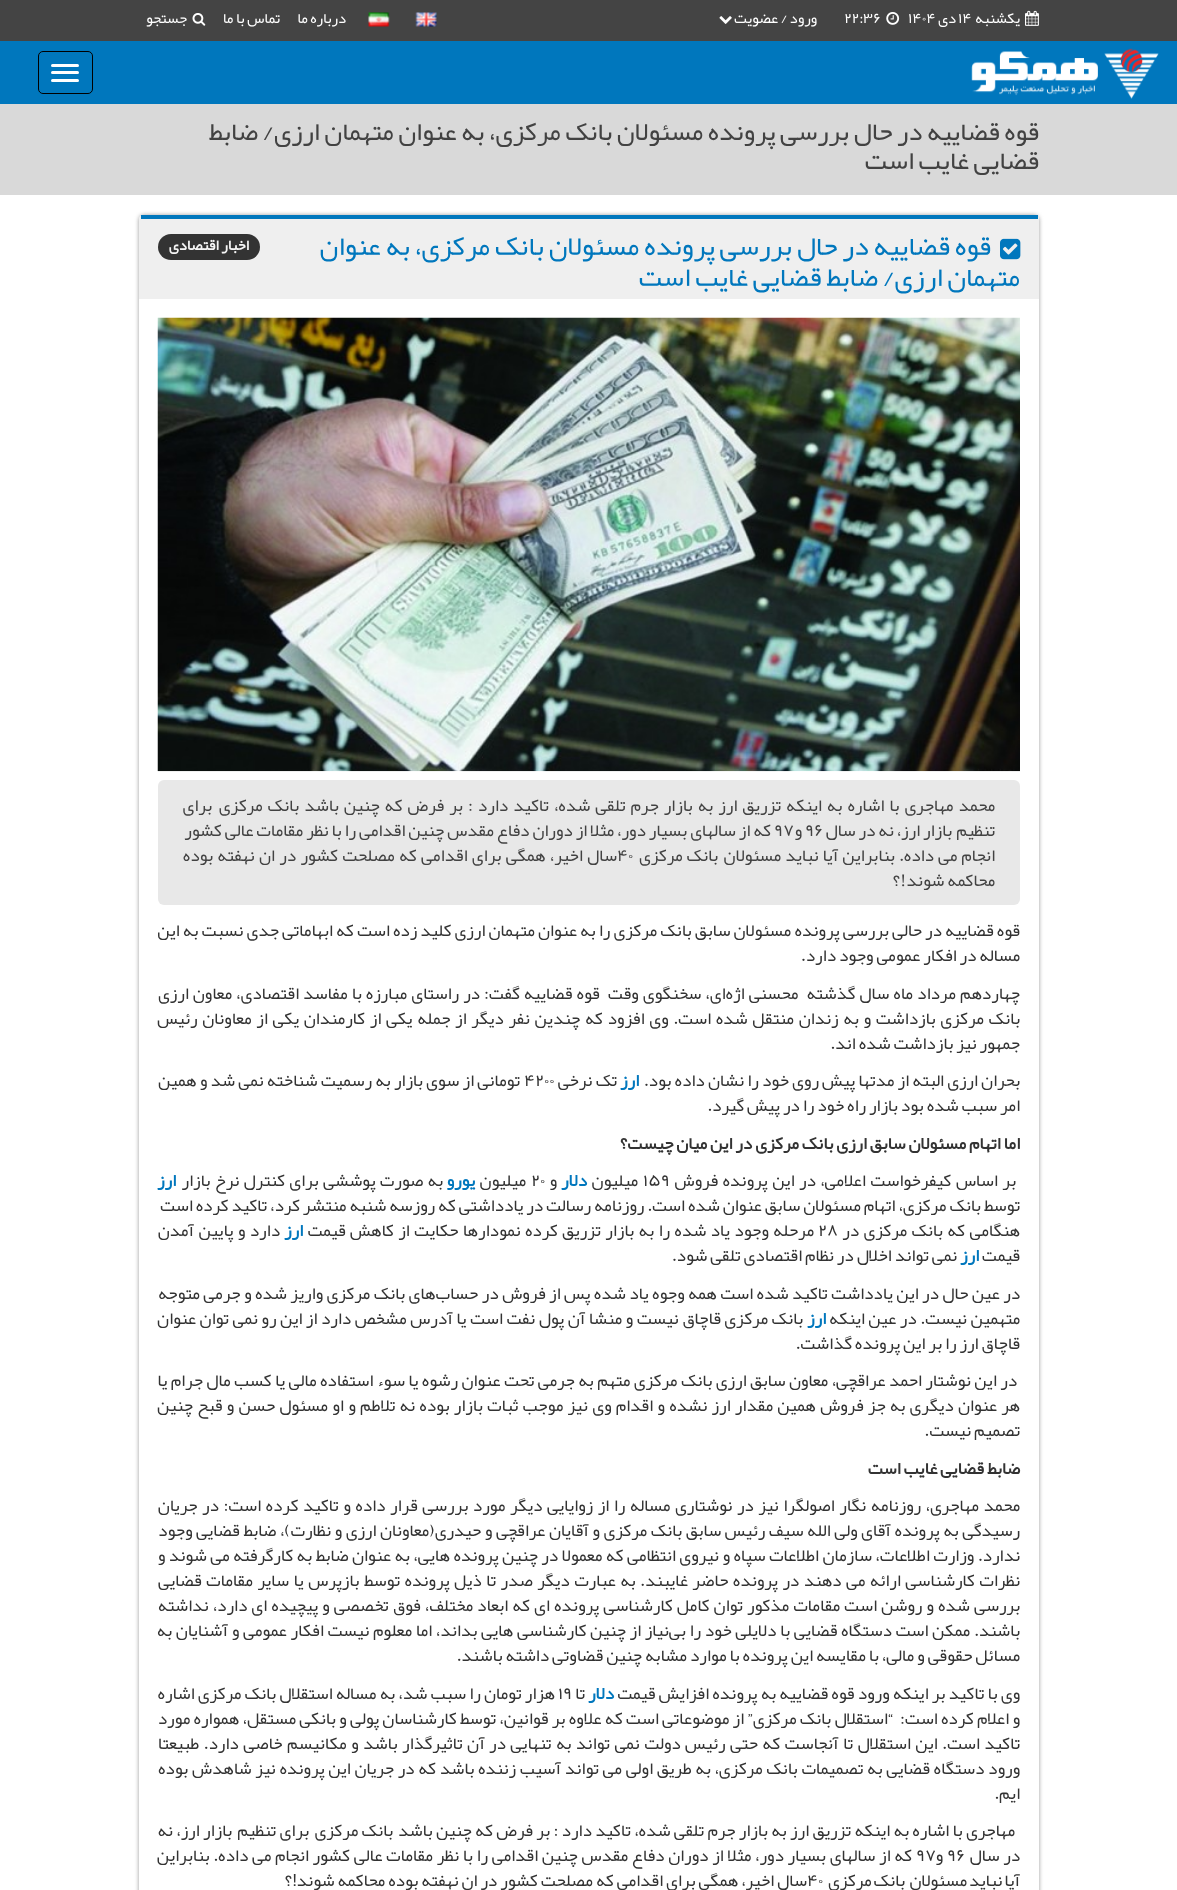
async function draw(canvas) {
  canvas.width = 1177;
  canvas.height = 1890;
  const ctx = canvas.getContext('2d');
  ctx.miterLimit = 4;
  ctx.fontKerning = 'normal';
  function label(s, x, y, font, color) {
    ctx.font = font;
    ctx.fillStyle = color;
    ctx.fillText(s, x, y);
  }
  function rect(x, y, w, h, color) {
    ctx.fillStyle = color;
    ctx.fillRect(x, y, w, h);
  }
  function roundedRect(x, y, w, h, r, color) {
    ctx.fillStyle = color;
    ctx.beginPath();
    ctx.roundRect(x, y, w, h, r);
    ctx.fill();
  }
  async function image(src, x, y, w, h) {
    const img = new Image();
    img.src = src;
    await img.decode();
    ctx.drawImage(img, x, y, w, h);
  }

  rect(0, 0, 1177, 1890, '#fff');
  rect(0, 0, 1177, 41, '#444');
  await image('assets/img1.png', 1025, 10, 14, 16);
  ctx.direction = 'rtl';
  label('یکشنبه', 1020, 23, '15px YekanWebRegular', '#fff');
  ctx.direction = 'ltr';
  label('14', 958, 23, '15px YekanWebRegular', '#fff');
  ctx.direction = 'rtl';
  label('دی', 956, 23, '15px YekanWebRegular', '#fff');
  ctx.direction = 'ltr';
  label('1404', 908, 23, '15px YekanWebRegular', '#fff');
  await image('assets/img2.png', 886, 12, 14, 13);
  label('22:36', 844, 23, '15px YekanWebRegular', '#fff');
  ctx.direction = 'rtl';
  label('ورود / عضویت', 817, 23, '15px YekanWebRegular', '#fff');
  await image('assets/img3.png', 719, 16, 13, 8);
  await image('assets/img4.png', 415, 12, 22, 15);
  await image('assets/img5.png', 368, 12, 22, 15);
  label('درباره ما', 346, 23, '15px YekanWebRegular', '#fff');
  label('تماس با ما', 280, 23, '15px YekanWebRegular', '#fff');
  await image('assets/img6.png', 192, 13, 14, 13);
  label('جستجو', 187, 23, '15px YekanWebRegular', '#fff');
  rect(0, 41, 1177, 63, '#0077bd');
  await image('assets/img7.png', 971, 48, 188, 51);
  ctx.beginPath();
  ctx.roundRect(38.5, 51.5, 54, 42, 4.5);
  ctx.strokeStyle = '#000';
  ctx.stroke();
  roundedRect(51, 64, 28, 3, 1.5, '#fff');
  roundedRect(51, 71, 28, 3, 1.5, '#fff');
  roundedRect(51, 79, 28, 3, 1.5, '#fff');
  rect(0, 104, 1177, 91, '#d9d9d9');
  label('قوه قضاییه در حال بررسی پرونده مسئولان بانک مرکزی، به عنوان متهمان ارزی/ ضابط', 1039, 140, '26.25px YekanWebRegular', '#424242');
  label('قضایی غایب است', 1039, 169, '26.25px YekanWebRegular', '#424242');
  ctx.fillStyle = '#999';
  ctx.filter = 'blur(2px)';
  ctx.beginPath();
  ctx.roundRect(139, 215, 900, 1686, 5);
  ctx.fill();
  ctx.filter = 'none';
  roundedRect(139, 215, 900, 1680, 5, '#fff');
  ctx.fillStyle = '#efefef';
  ctx.beginPath();
  ctx.roundRect(139, 215, 900, 84, [4, 4, 0, 0]);
  ctx.fill();
  rect(141, 215, 897, 4, '#0077bd');
  await image('assets/img8.png', 1000, 238, 21, 22);
  label('قوه قضاییه در حال بررسی پرونده مسئولان بانک مرکزی، به عنوان', 991, 255, '27.5px YekanWebRegular', '#0077bd');
  label('متهمان ارزی/ ضابط قضایی غایب است', 1020, 286, '27.5px YekanWebRegular', '#0077bd');
  roundedRect(158, 234, 102, 26, 13, '#333');
  label('اخبار اقتصادی', 249, 250, 'bold 15px YekanWebRegular', '#f5f5f5');
  await image('assets/img9.png', 157, 317, 863, 455);
  roundedRect(158, 780, 862, 125, 6, '#e8e8e8');
  ctx.wordSpacing = '2.1px';
  label('محمد مهاجری با اشاره به اینکه تزریق ارز به بازار جرم تلقی شده، تاکید دارد : بر فرض که چنین باشد', 995, 811, '17.5px YekanWebRegular', '#424242');
  label('بانک مرکزی', 299, 811, '17.5px YekanWebRegular', '#424242');
  ctx.wordSpacing = '0px';
  label('برای', 212, 811, '17.5px YekanWebRegular', '#424242');
  label('تنظیم', 995, 836, '17.5px YekanWebRegular', '#424242');
  label('بازار ارز، نه در سال', 952, 836, '17.5px YekanWebRegular', '#424242');
  ctx.direction = 'ltr';
  label('۹۶', 805, 836, '17.5px YekanWebRegular', '#424242');
  ctx.direction = 'rtl';
  label('و', 802, 836, '17.5px YekanWebRegular', '#424242');
  ctx.direction = 'ltr';
  label('۹۷', 774, 836, '17.5px YekanWebRegular', '#424242');
  ctx.direction = 'rtl';
  label('که از سالهای بسیار دور، مثلا از دوران دفاع مقدس چنین اقدامی را با نظر مقامات عالی کشور', 771, 836, '17.5px YekanWebRegular', '#424242');
  ctx.wordSpacing = '1px';
  label('انجام می داده. بنابراین آیا نباید مسئولان', 995, 861, '17.5px YekanWebRegular', '#424242');
  label('بانک مرکزی', 718, 861, '17.5px YekanWebRegular', '#424242');
  ctx.wordSpacing = '0px';
  ctx.direction = 'ltr';
  label('۴۰', 617, 861, '17.5px YekanWebRegular', '#424242');
  ctx.wordSpacing = '1.4px';
  ctx.direction = 'rtl';
  label('سال اخیر، همگی برای اقدامی که مصلحت کشور در ان نهفته بوده', 617, 861, '17.5px YekanWebRegular', '#424242');
  ctx.wordSpacing = '0px';
  label('محاکمه شوند', 995, 886, '17.5px YekanWebRegular', '#424242');
  label('!', 906, 886, '17.5px Liberation Serif', '#424242');
  label('؟', 900, 886, '17.5px YekanWebRegular', '#424242');
  ctx.wordSpacing = '0.2px';
  label('قوه قضاییه در حالی بررسی پرونده مسئولان سابق بانک مرکزی را به عنوان متهمان ارزی کلید زده است که ابهاماتی جدی نسبت به این', 1020, 936, '17.5px YekanWebRegular', '#333');
  ctx.wordSpacing = '0px';
  label('مساله در افکار عمومی وجود دارد.', 1020, 961, '17.5px YekanWebRegular', '#333');
  ctx.wordSpacing = '1.1px';
  label('چهاردهم مرداد ماه سال گذشته  محسنی اژه‌ای، سخنگوی وقت  قوه قضاییه گفت: در راستای مبارزه با مفاسد اقتصادی، معاون ارزی', 1020, 999, '17.5px YekanWebRegular', '#333');
  ctx.wordSpacing = '1.75px';
  label('بانک مرکزی بازداشت و به زندان منتقل شده است. وی افزود که چندین نفر دیگر از جمله یکی از کارمندان یکی از معاونان رئیس', 1020, 1024, '17.5px YekanWebRegular', '#333');
  ctx.wordSpacing = '0px';
  label('جمهور نیز بازداشت شده اند.', 1020, 1049, '17.5px YekanWebRegular', '#333');
  ctx.wordSpacing = '0.25px';
  label('بحران ارزی البته از مدتها پیش روی خود را نشان داده بود.', 1020, 1086, '17.5px YekanWebRegular', '#333');
  ctx.wordSpacing = '0px';
  label('ارز', 639, 1086, 'bold 17.5px YekanWebRegular', '#0077bd');
  ctx.wordSpacing = '0.25px';
  label('تک نرخی', 617, 1086, '17.5px YekanWebRegular', '#333');
  ctx.wordSpacing = '0px';
  ctx.direction = 'ltr';
  label('۴۲۰۰', 524, 1086, '17.5px YekanWebRegular', '#333');
  ctx.wordSpacing = '0.25px';
  ctx.direction = 'rtl';
  label('تومانی از سوی بازار به رسمیت شناخته نمی شد و همین', 520, 1086, '17.5px YekanWebRegular', '#333');
  ctx.wordSpacing = '0px';
  label('امر سبب شده بود بازار راه خود را در پیش گیرد.', 1020, 1111, '17.5px YekanWebRegular', '#333');
  label('اما اتهام مسئولان سابق ارزی بانک مرکزی در این میان چیست؟', 1020, 1149, 'bold 17.5px YekanWebRegular', '#333');
  ctx.wordSpacing = '1.5px';
  label('بر اساس کیفرخواست اعلامی، در این پرونده فروش', 1016, 1186, '17.5px YekanWebRegular', '#333');
  ctx.wordSpacing = '0px';
  ctx.direction = 'ltr';
  label('۱۵۹', 643, 1186, '17.5px YekanWebRegular', '#333');
  ctx.direction = 'rtl';
  label('میلیون', 638, 1186, '17.5px YekanWebRegular', '#333');
  label('دلار', 587, 1186, 'bold 17.5px YekanWebRegular', '#0077bd');
  label('و', 557, 1186, '17.5px YekanWebRegular', '#333');
  ctx.direction = 'ltr';
  label('۲۰', 531, 1186, '17.5px YekanWebRegular', '#333');
  ctx.direction = 'rtl';
  label('میلیون', 526, 1186, '17.5px YekanWebRegular', '#333');
  label('یورو', 475, 1186, 'bold 17.5px YekanWebRegular', '#0077bd');
  ctx.wordSpacing = '1.25px';
  label('به صورت پوششی برای کنترل نرخ بازار', 443, 1186, '17.5px YekanWebRegular', '#333');
  ctx.wordSpacing = '0px';
  label('ارز', 176, 1186, 'bold 17.5px YekanWebRegular', '#0077bd');
  label('توسط بانک مرکزی، اتهام مسئولان سابق عنوان شده است. روزنامه رسالت در یادداشتی که روزسه شنبه منتشر کرد، تاکید کرده است', 1020, 1211, '17.5px YekanWebRegular', '#333');
  ctx.wordSpacing = '1.4px';
  label('هنگامی که بانک مرکزی در', 1020, 1236, '17.5px YekanWebRegular', '#333');
  ctx.wordSpacing = '0px';
  ctx.direction = 'ltr';
  label('۲۸', 818, 1236, '17.5px YekanWebRegular', '#333');
  ctx.wordSpacing = '1.4px';
  ctx.direction = 'rtl';
  label('مرحله وجود یاد شده را به بازار تزریق کرده نمودارها حکایت از کاهش قیمت', 814, 1236, '17.5px YekanWebRegular', '#333');
  ctx.wordSpacing = '0px';
  label('ارز', 303, 1236, 'bold 17.5px YekanWebRegular', '#0077bd');
  ctx.wordSpacing = '1.4px';
  label('دارد و پایین آمدن', 280, 1236, '17.5px YekanWebRegular', '#333');
  ctx.wordSpacing = '0px';
  label('قیمت', 1020, 1261, '17.5px YekanWebRegular', '#333');
  label('ارز', 979, 1261, 'bold 17.5px YekanWebRegular', '#0077bd');
  label('نمی تواند اخلال در نظام اقتصادی تلقی شود.', 957, 1261, '17.5px YekanWebRegular', '#333');
  ctx.wordSpacing = '0.5px';
  label('در عین حال در این یادداشت تاکید شده است همه وجوه یاد شده پس از فروش در حساب‌های بانک مرکزی واریز شده و جرمی متوجه', 1020, 1299, '17.5px YekanWebRegular', '#333');
  ctx.wordSpacing = '0.6px';
  label('متهمین نیست. در عین اینکه', 1020, 1324, '17.5px YekanWebRegular', '#333');
  ctx.wordSpacing = '0px';
  label('ارز', 826, 1324, 'bold 17.5px YekanWebRegular', '#0077bd');
  ctx.wordSpacing = '0.6px';
  label('بانک مرکزی قاچاق نیست و منشا آن پول نفت است یا آدرس مشخص دارد از این رو نمی توان عنوان', 803, 1324, '17.5px YekanWebRegular', '#333');
  ctx.wordSpacing = '0px';
  label('قاچاق ارز را بر این پرونده گذاشت.', 1020, 1349, '17.5px YekanWebRegular', '#333');
  ctx.wordSpacing = '0.5px';
  label('در این نوشتار احمد عراقچی، معاون سابق ارزی بانک مرکزی متهم به جرمی تحت عنوان رشوه یا سوء استفاده مالی یا کسب مال جرام یا', 1017, 1386, '17.5px YekanWebRegular', '#333');
  ctx.wordSpacing = '1.3px';
  label('هر عنوان دیگری به جز فروش همین مقدار ارز نشده و اقدام وی نیز موجب ثبات بازار بوده نه تلاطم و او مسئول حسن و قبح چنین', 1020, 1411, '17.5px YekanWebRegular', '#333');
  ctx.wordSpacing = '0px';
  label('تصمیم نیست.', 1020, 1436, '17.5px YekanWebRegular', '#333');
  label('ضابط قضایی غایب است', 1020, 1474, 'bold 17.5px YekanWebRegular', '#333');
  ctx.wordSpacing = '1.6px';
  label('محمد مهاجری، روزنامه نگار اصولگرا نیز در نوشتاری مساله را از زوایایی دیگر مورد بررسی قرار داده و تاکید کرده است: در جریان', 1020, 1511, '17.5px YekanWebRegular', '#333');
  ctx.wordSpacing = '0.6px';
  label('رسیدگی به پرونده آقای ولی الله سیف رئیس سابق بانک مرکزی و آقایان عراقچی و حیدری(معاونان ارزی و نظارت)، ضابط قضایی وجود', 1020, 1536, '17.5px YekanWebRegular', '#333');
  ctx.wordSpacing = '0.5px';
  label('ندارد. وزارت اطلاعات، سازمان اطلاعات سپاه و نیروی انتظامی که معمولا در چنین پرونده هایی، به عنوان ضابط به کارگرفته می شوند و', 1020, 1561, '17.5px YekanWebRegular', '#333');
  ctx.wordSpacing = '1.5px';
  label('نظرات کارشناسی ارائه می دهند در پرونده حاضر غایبند. به عبارت دیگر صدر تا ذیل پرونده توسط بازپرس یا سایر مقامات قضایی', 1020, 1586, '17.5px YekanWebRegular', '#333');
  ctx.wordSpacing = '1.1px';
  label('بررسی شده و روشن است مقامات مذکور توان کامل کارشناسی پرونده ای که ابعاد مختلف، فوق تخصصی و پیچیده ای دارد، نداشته', 1020, 1611, '17.5px YekanWebRegular', '#333');
  ctx.wordSpacing = '0.7px';
  label('باشند. ممکن است دستگاه قضایی با دلایلی خود را بی‌نیاز از چنین کارشناسی هایی بداند، اما معلوم نیست افکار عمومی و آشنایان به', 1020, 1636, '17.5px YekanWebRegular', '#333');
  ctx.wordSpacing = '0px';
  label('مسائل حقوقی و مالی، با مقایسه این پرونده با موارد مشابه چنین قضاوتی داشته باشند.', 1020, 1661, '17.5px YekanWebRegular', '#333');
  ctx.wordSpacing = '0.25px';
  label('وی با تاکید بر اینکه ورود قوه قضاییه به پرونده افزایش قیمت', 1020, 1699, '17.5px YekanWebRegular', '#333');
  ctx.wordSpacing = '0px';
  label('دلار', 614, 1699, 'bold 17.5px YekanWebRegular', '#0077bd');
  label('تا', 585, 1699, '17.5px YekanWebRegular', '#333');
  ctx.direction = 'ltr';
  label('۱۹', 558, 1699, '17.5px YekanWebRegular', '#333');
  ctx.wordSpacing = '0.25px';
  ctx.direction = 'rtl';
  label('هزار تومان را سبب شد، به مساله استقلال بانک مرکزی اشاره', 555, 1699, '17.5px YekanWebRegular', '#333');
  ctx.wordSpacing = '0.3px';
  label('و اعلام کرده است:  “استقلال بانک مرکزی” از موضوعاتی است که علاوه بر قوانین، توسط کارشناسان پولی و بانکی مستقل، همواره مورد', 1020, 1724, '17.5px YekanWebRegular', '#333');
  ctx.wordSpacing = '1.5px';
  label('تاکید است. این استقلال تا آنجاست که حتی رئیس دولت نمی تواند به تنهایی در آن تاثیرگذار باشد و مکانیسم خاصی دارد. طبیعتا', 1020, 1749, '17.5px YekanWebRegular', '#333');
  ctx.wordSpacing = '0.75px';
  label('ورود دستگاه قضایی به تصمیمات بانک مرکزی، به طریق اولی می تواند آسیب زننده باشد که در جریان این پرونده نیز شاهدش بوده', 1020, 1774, '17.5px YekanWebRegular', '#333');
  ctx.wordSpacing = '0px';
  label('ایم.', 1020, 1799, '17.5px YekanWebRegular', '#333');
  ctx.wordSpacing = '0.4px';
  label('مهاجری با اشاره به اینکه تزریق ارز به بازار جرم تلقی شده، تاکید دارد : بر فرض که چنین باشد', 1015, 1836, '17.5px YekanWebRegular', '#333');
  label('بانک مرکزی', 393, 1836, '17.5px YekanWebRegular', '#333');
  label('برای تنظیم', 309, 1836, '17.5px YekanWebRegular', '#333');
  label('بازار ارز، نه', 232, 1836, '17.5px YekanWebRegular', '#333');
  ctx.wordSpacing = '0.75px';
  label('در سال', 1020, 1861, '17.5px YekanWebRegular', '#333');
  ctx.wordSpacing = '0px';
  ctx.direction = 'ltr';
  label('۹۶', 947, 1861, '17.5px YekanWebRegular', '#333');
  ctx.direction = 'rtl';
  label('و', 943, 1861, '17.5px YekanWebRegular', '#333');
  ctx.direction = 'ltr';
  label('۹۷', 916, 1861, '17.5px YekanWebRegular', '#333');
  ctx.wordSpacing = '0.75px';
  ctx.direction = 'rtl';
  label('که از سالهای بسیار دور، مثلا از دوران دفاع مقدس چنین اقدامی را با نظر مقامات عالی کشور انجام می داده. بنابراین', 912, 1861, '17.5px YekanWebRegular', '#333');
  ctx.wordSpacing = '-1px';
  label('آیا نباید مسئولان', 1020, 1886, '17.5px YekanWebRegular', '#333');
  label('بانک مرکزی', 905, 1886, '17.5px YekanWebRegular', '#333');
  ctx.wordSpacing = '0px';
  ctx.direction = 'ltr';
  label('۴۰', 807, 1886, '17.5px YekanWebRegular', '#333');
  ctx.direction = 'rtl';
  label('سال اخیر، همگی برای اقدامی که مصلحت کشور در ان نهفته بوده محاکمه شوند', 807, 1886, '17.5px YekanWebRegular', '#333');
  label('!', 297, 1886, '17.5px Liberation Sans', '#333');
  label('؟', 292, 1886, '17.5px YekanWebRegular', '#333');
}

draw(document.querySelector('canvas'));
